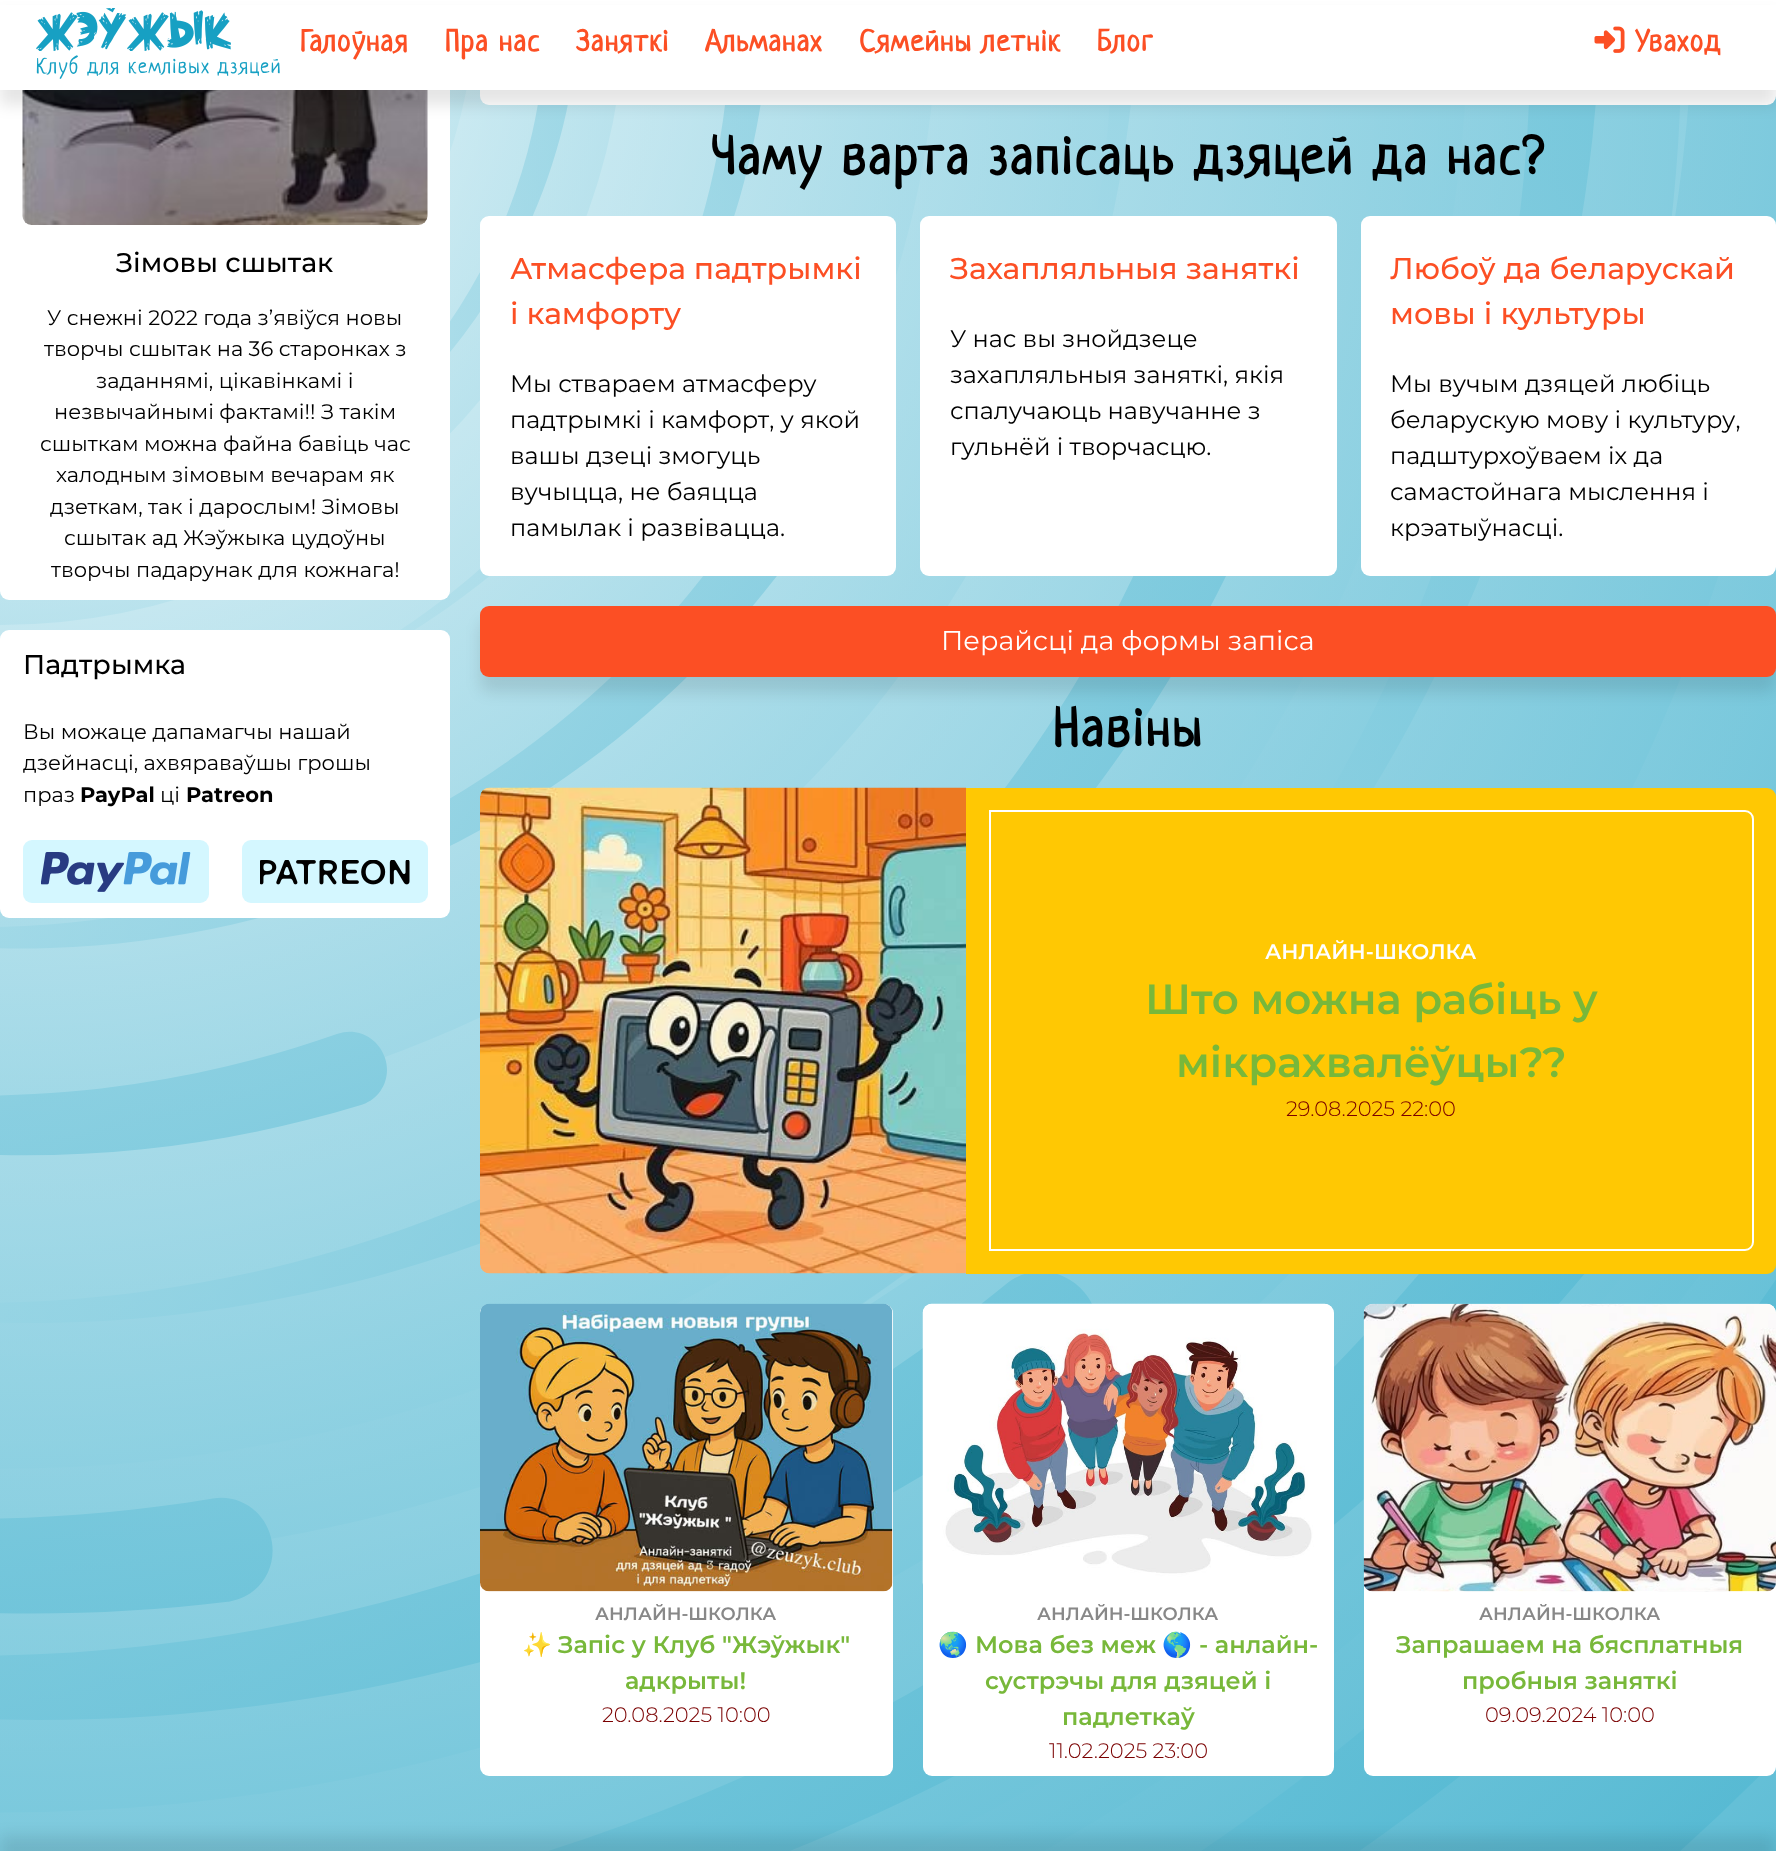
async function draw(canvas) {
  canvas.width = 1776;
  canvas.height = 1874;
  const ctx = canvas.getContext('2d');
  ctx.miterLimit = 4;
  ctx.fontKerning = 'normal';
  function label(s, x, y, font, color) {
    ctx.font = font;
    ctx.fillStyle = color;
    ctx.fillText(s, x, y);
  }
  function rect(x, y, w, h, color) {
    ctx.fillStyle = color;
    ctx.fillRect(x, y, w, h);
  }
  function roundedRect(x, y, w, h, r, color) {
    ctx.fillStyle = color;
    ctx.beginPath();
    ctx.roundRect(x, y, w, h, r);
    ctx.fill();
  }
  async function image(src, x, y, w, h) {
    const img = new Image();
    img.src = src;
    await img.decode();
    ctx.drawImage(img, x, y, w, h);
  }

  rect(0, 0, 1776, 1874, '#fff');
  await image('assets/img1.png', 0, 90, 1776, 1761);
  roundedRect(0, -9, 450, 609, 9, '#fff');
  await image('assets/img4.png', 22, 90, 406, 135);
  roundedRect(480, -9, 1296, 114, 9, '#fff');
  ctx.fillStyle = '#0000001a';
  ctx.filter = 'blur(7.5px)';
  ctx.beginPath();
  ctx.rect(0, 15, 1776, 90);
  ctx.fill();
  ctx.filter = 'none';
  rect(0, 5, 1776, 85, '#fff');
  ctx.letterSpacing = '1.5px';
  label('Галоўная', 300, 51, 'bold 30px Neucha', '#fc4f24');
  label('Пра нас', 445, 51, 'bold 30px Neucha', '#fc4f24');
  label('Заняткі', 576, 51, 'bold 30px Neucha', '#fc4f24');
  label('Альманах', 705, 51, 'bold 30px Neucha', '#fc4f24');
  label('Сямейны летнік', 859, 51, 'bold 30px Neucha', '#fc4f24');
  label('Блог', 1097, 51, 'bold 30px Neucha', '#fc4f24');
  await image('assets/img2.png', 36, 8, 195, 43);
  label('Клуб для кемлівых дзяцей', 36, 73, '21px Neucha', '#17a0c3');
  await image('assets/img3.png', 1594, 26, 31, 27);
  label('Уваход', 1635, 51, 'bold 30px Neucha', '#fc4f24');
  ctx.letterSpacing = '0px';
  label('Зімовы сшытак', 116, 272, '500 27px Montserrat', '#000');
  label('У снежні 2022 года з’явіўся новы', 47, 325, '21px Montserrat', '#000');
  label('творчы сшытак на 36 старонках з', 44, 356, '21px Montserrat', '#000');
  label('заданнямі, цікавінкамі і', 96, 388, '21px Montserrat', '#000');
  label('незвычайнымі фактамі!! З такім', 54, 419, '21px Montserrat', '#000');
  label('сшыткам можна файна бавіць час', 40, 451, '21px Montserrat', '#000');
  label('халодным зімовым вечарам як', 56, 482, '21px Montserrat', '#000');
  label('дзеткам, так і дарослым! Зімовы', 50, 514, '21px Montserrat', '#000');
  label('сшытак ад Жэўжыка цудоўны', 64, 545, '21px Montserrat', '#000');
  label('творчы падарунак для кожнага!', 51, 577, '21px Montserrat', '#000');
  roundedRect(0, 630, 450, 288, 9, '#fff');
  label('Падтрымка', 23, 674, '500 27px Montserrat', '#000');
  label('Вы можаце дапамагчы нашай', 23, 739, '21px Montserrat', '#000');
  label('дзейнасці, ахвяраваўшы грошы', 23, 770, '21px Montserrat', '#000');
  label('праз', 23, 802, '21px Montserrat', '#000');
  label('PayPal', 80, 802, 'bold 21px Montserrat', '#000');
  label('ці', 160, 802, '21px Montserrat', '#000');
  label('Patreon', 186, 802, 'bold 21px Montserrat', '#000');
  roundedRect(23, 840, 186, 63, 9, '#d4f7ff');
  await image('assets/img5.png', 41, 852, 150, 40);
  roundedRect(242, 840, 186, 63, 9, '#d4f7ff');
  await image('assets/img6.png', 260, 860, 150, 25);
  ctx.letterSpacing = '3px';
  label('Чаму варта запісаць дзяцей да нас?', 710, 174, 'bold 54px Neucha', '#000');
  roundedRect(480, 216, 416, 360, 9, '#fff');
  ctx.letterSpacing = '0px';
  label('Атмасфера падтрымкі', 510, 279, '500 30px Montserrat', '#fc4f24');
  label('і камфорту', 510, 324, '500 30px Montserrat', '#fc4f24');
  label('Мы ствараем атмасферу', 510, 392, '24px Montserrat', '#000');
  label('падтрымкі і камфорт, у якой', 510, 428, '24px Montserrat', '#000');
  label('вашы дзеці змогуць', 510, 464, '24px Montserrat', '#000');
  label('вучыцца, не баяцца', 510, 500, '24px Montserrat', '#000');
  label('памылак і развівацца.', 510, 536, '24px Montserrat', '#000');
  roundedRect(920, 216, 417, 360, 9, '#fff');
  label('Захапляльныя заняткі', 950, 279, '500 30px Montserrat', '#fc4f24');
  label('У нас вы знойдзеце', 950, 347, '24px Montserrat', '#000');
  label('захапляльныя заняткі, якія', 950, 383, '24px Montserrat', '#000');
  label('спалучаюць навучанне з', 950, 419, '24px Montserrat', '#000');
  label('гульнёй і творчасцю.', 950, 455, '24px Montserrat', '#000');
  roundedRect(1361, 216, 415, 360, 9, '#fff');
  label('Любоў да беларускай', 1390, 279, '500 30px Montserrat', '#fc4f24');
  label('мовы і культуры', 1390, 324, '500 30px Montserrat', '#fc4f24');
  label('Мы вучым дзяцей любіць', 1390, 392, '24px Montserrat', '#000');
  label('беларускую мову і культуру,', 1390, 428, '24px Montserrat', '#000');
  label('падштурхоўваем іх да', 1390, 464, '24px Montserrat', '#000');
  label('самастойнага мыслення і', 1390, 500, '24px Montserrat', '#000');
  label('крэатыўнасці.', 1390, 536, '24px Montserrat', '#000');
  ctx.fillStyle = '#0000001a';
  ctx.filter = 'blur(7.5px)';
  ctx.beginPath();
  ctx.roundRect(480, 621, 1296, 71, 9);
  ctx.fill();
  ctx.filter = 'none';
  roundedRect(480, 606, 1296, 71, 9, '#fc4f24');
  label('Перайсці да формы запіса', 941, 650, '27px Montserrat', '#fff');
  ctx.letterSpacing = '3px';
  label('Навіны', 1053, 746, 'bold 54px Neucha', '#000');
  await image('assets/img7.png', 480, 787, 486, 487);
  ctx.fillStyle = '#ffc803';
  ctx.beginPath();
  ctx.roundRect(966, 788, 810, 486, [0, 9, 9, 0]);
  ctx.fill();
  ctx.beginPath();
  ctx.roundRect(990, 811, 763, 439, [0, 8, 8, 0]);
  ctx.strokeStyle = '#fff';
  ctx.lineWidth = 2;
  ctx.stroke();
  ctx.letterSpacing = '0px';
  label('АНЛАЙН-ШКОЛКА', 1265, 959, '600 21px Montserrat', '#fff');
  label('Што можна рабіць у', 1145, 1014, '600 42px Montserrat', '#78b83a');
  label('мікрахвалёўцы??', 1176, 1077, '600 42px Montserrat', '#78b83a');
  label('29.08.2025 22:00', 1286, 1116, '300 21px Montserrat', '#7a0000');
  roundedRect(480, 1304, 413, 472, 9, '#fff');
  await image('assets/img8.png', 480, 1303, 413, 289);
  label('АНЛАЙН-ШКОЛКА', 595, 1620, '600 18px Montserrat', '#888');
  label('✨', 522, 1653, 'bold 24px Noto Color Emoji', '#78b83a');
  label('Запіс у Клуб "Жэўжык"', 558, 1653, '600 24px Montserrat', '#78b83a');
  label('адкрыты!', 625, 1689, '600 24px Montserrat', '#78b83a');
  label('20.08.2025 10:00', 602, 1722, '300 21px Montserrat', '#7a0000');
  roundedRect(923, 1304, 411, 472, 9, '#fff');
  await image('assets/img9.png', 922, 1303, 411, 282);
  label('АНЛАЙН-ШКОЛКА', 1037, 1620, '600 18px Montserrat', '#888');
  label('🌏', 938, 1653, 'bold 24px Noto Color Emoji', '#78b83a');
  label('Мова без меж', 975, 1653, '600 24px Montserrat', '#78b83a');
  label('🌎', 1162, 1653, 'bold 24px Noto Color Emoji', '#78b83a');
  label('- анлайн-', 1199, 1653, '600 24px Montserrat', '#78b83a');
  label('сустрэчы для дзяцей і', 985, 1689, '600 24px Montserrat', '#78b83a');
  label('падлеткаў', 1062, 1725, '600 24px Montserrat', '#78b83a');
  label('11.02.2025 23:00', 1049, 1758, '300 21px Montserrat', '#7a0000');
  roundedRect(1364, 1304, 412, 472, 9, '#fff');
  await image('assets/img10.png', 1363, 1303, 413, 289);
  label('АНЛАЙН-ШКОЛКА', 1479, 1620, '600 18px Montserrat', '#888');
  label('Запрашаем на бясплатныя', 1396, 1653, '600 24px Montserrat', '#78b83a');
  label('пробныя заняткі', 1462, 1689, '600 24px Montserrat', '#78b83a');
  label('09.09.2024 10:00', 1485, 1722, '300 21px Montserrat', '#7a0000');
  ctx.fillStyle = '#0000001a';
  ctx.filter = 'blur(7.5px)';
  ctx.beginPath();
  ctx.rect(0, 1836, 1776, 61);
  ctx.fill();
  ctx.filter = 'none';
  rect(0, 1851, 1776, 23, '#fff');
}

draw(document.querySelector('canvas'));
